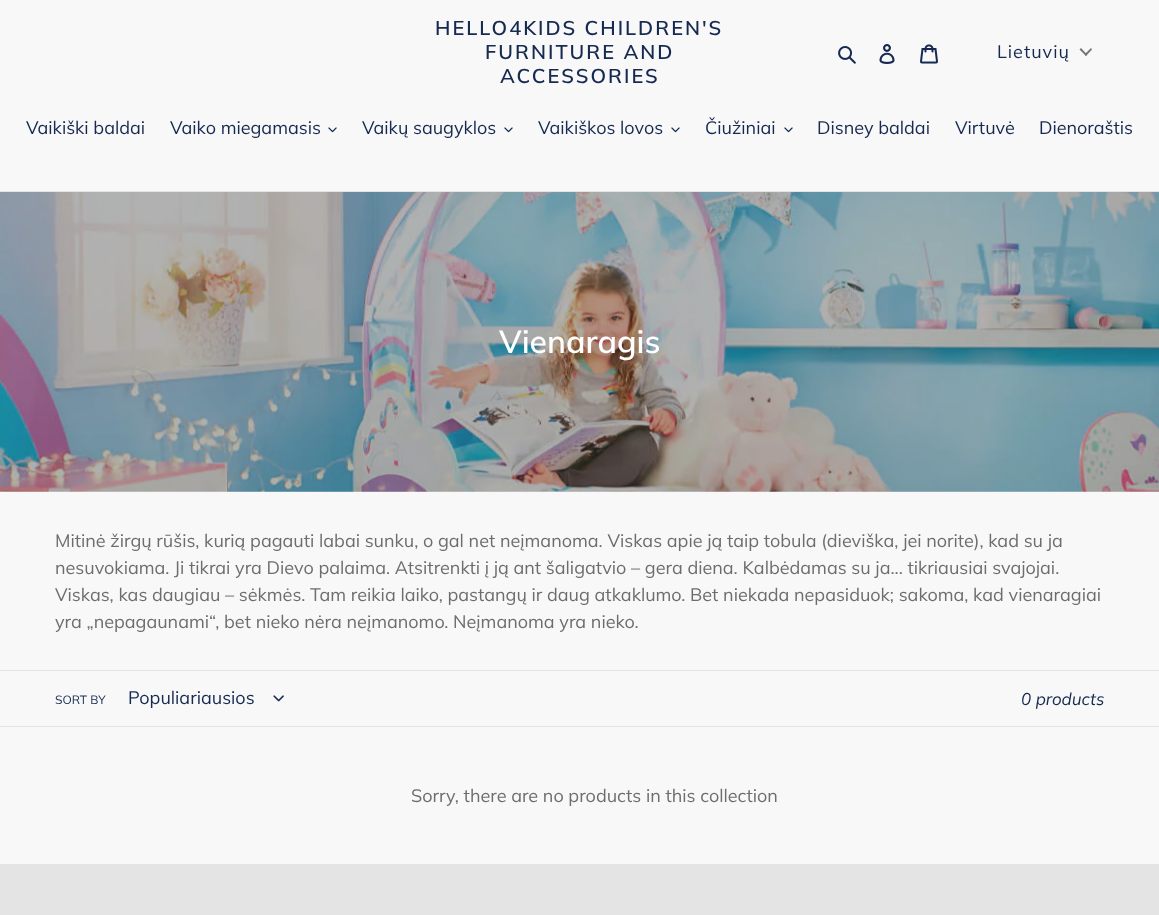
async function draw(canvas) {
  canvas.width = 1159;
  canvas.height = 915;
  const ctx = canvas.getContext('2d');
  ctx.miterLimit = 4;
  ctx.fontKerning = 'normal';
  function label(s, x, y, font, color) {
    ctx.font = font;
    ctx.fillStyle = color;
    ctx.fillText(s, x, y);
  }
  function rect(x, y, w, h, color) {
    ctx.fillStyle = color;
    ctx.fillRect(x, y, w, h);
  }
  async function image(src, x, y, w, h) {
    const img = new Image();
    img.src = src;
    await img.decode();
    ctx.drawImage(img, x, y, w, h);
  }
  let path;

  rect(0, 0, 1159, 915, '#f8f8f8');
  ctx.letterSpacing = '2px';
  label('HELLO4KIDS CHILDREN\'S', 435, 35, '600 20px Muli', '#162950');
  label('FURNITURE AND', 485, 59, '600 20px Muli', '#162950');
  label('ACCESSORIES', 500, 83, '600 20px Muli', '#162950');
  await image('assets/img1.png', 838, 46, 18, 18);
  await image('assets/img2.png', 879, 44, 16, 20);
  await image('assets/img3.png', 920, 44, 18, 20);
  ctx.letterSpacing = '1px';
  label('Lietuvių', 997, 58, '18px Muli', '#162950');
  ctx.fillStyle = '#747474';
  path = new Path2D('M1091 48L1092 49.5L1086 56L1084.5 54.5Z');
  ctx.fill(path);
  path = new Path2D('M1081 48L1087 54.5L1086 56L1079.5 49.5Z');
  ctx.fill(path);
  rect(0, 191, 1159, 1, '#e4e4e4');
  ctx.letterSpacing = '0px';
  label('Vaikiški baldai', 26, 134, '18px Muli', '#162950');
  label('Vaiko miegamasis', 170, 134, '18px Muli', '#162950');
  await image('assets/img4.png', 328, 127, 9, 6);
  label('Vaikų saugyklos', 362, 134, '18px Muli', '#162950');
  await image('assets/img4.png', 504, 127, 9, 6);
  label('Vaikiškos lovos', 538, 134, '18px Muli', '#162950');
  await image('assets/img4.png', 671, 127, 9, 6);
  label('Čiužiniai', 705, 134, '18px Muli', '#162950');
  await image('assets/img4.png', 784, 127, 9, 6);
  label('Disney baldai', 817, 134, '18px Muli', '#162950');
  label('Virtuvė', 955, 134, '18px Muli', '#162950');
  label('Dienoraštis', 1039, 134, '18px Muli', '#162950');
  await image('assets/img5.png', 0, 192, 1159, 300);
  label('Vienaragis', 499, 353, '600 32px Muli', '#fff');
  label('Mitinė žirgų rūšis, kurią pagauti labai sunku, o gal net neįmanoma. Viskas apie ją taip tobula (dieviška, jei norite), kad su ja', 55, 547, '18px Muli', '#6d6d6d');
  label('nesuvokiama. Ji tikrai yra Dievo palaima. Atsitrenkti į ją ant šaligatvio – gera diena. Kalbėdamas su ja... tikriausiai svajojai.', 55, 574, '18px Muli', '#6d6d6d');
  label('Viskas, kas daugiau – sėkmės. Tam reikia laiko, pastangų ir daug atkaklumo. Bet niekada nepasiduok; sakoma, kad vienaragiai', 55, 601, '18px Muli', '#6d6d6d');
  label('yra „nepagaunami“, bet nieko nėra neįmanomo. Neįmanoma yra nieko.', 55, 628, '18px Muli', '#6d6d6d');
  rect(0, 670, 1159, 1, '#e4e4e4');
  rect(0, 726, 1159, 1, '#e4e4e4');
  label('SORT BY', 55, 704, '12px Muli', '#162950');
  label('Populiariausios', 128, 704, '18px Muli', '#162950');
  await image('assets/img6.png', 273, 695, 11, 7);
  label('0 products', 1021, 705, 'italic 17px Muli', '#162950');
  label('Sorry, there are no products in this collection', 411, 802, '18px Muli', '#6d6d6d');
  rect(0, 864, 1159, 51, '#e4e4e4');
}

draw(document.querySelector('canvas'));
